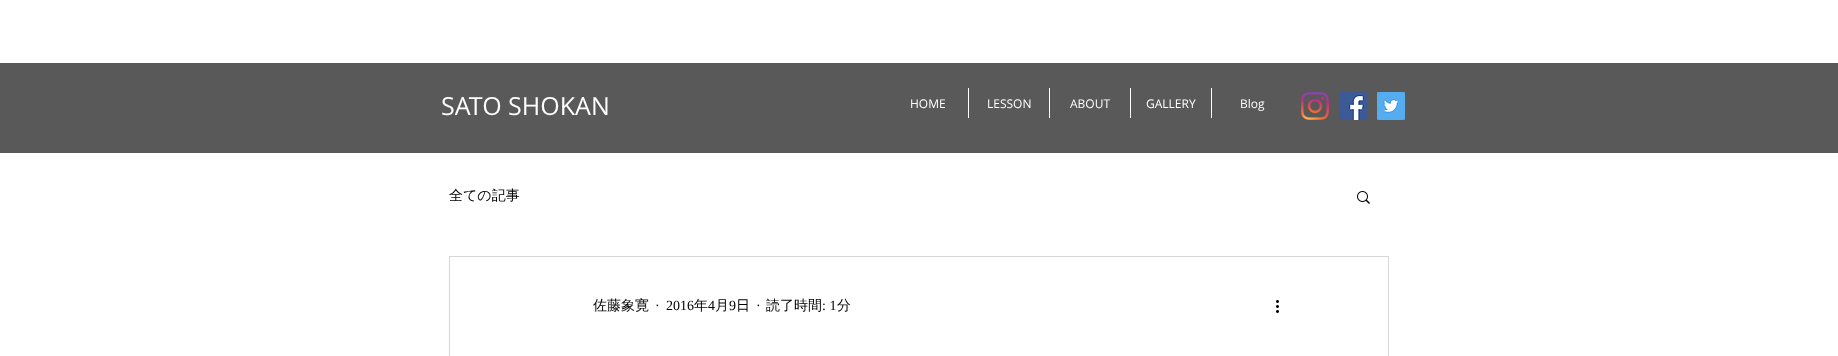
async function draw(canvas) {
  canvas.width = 1838;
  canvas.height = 356;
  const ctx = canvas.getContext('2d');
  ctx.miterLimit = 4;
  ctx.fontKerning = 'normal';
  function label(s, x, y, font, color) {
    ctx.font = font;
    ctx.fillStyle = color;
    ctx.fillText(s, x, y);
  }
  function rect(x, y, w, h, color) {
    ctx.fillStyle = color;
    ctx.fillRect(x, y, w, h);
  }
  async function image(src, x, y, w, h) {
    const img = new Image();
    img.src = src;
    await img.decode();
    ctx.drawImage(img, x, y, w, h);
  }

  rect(0, 0, 1838, 356, '#fff');
  rect(0, 63, 1838, 90, '#595959');
  label('SATO SHOKAN', 441, 115, '25px Open Sans', '#fff');
  label('HOME', 910, 108, '12px Open Sans', '#fff');
  rect(968, 88, 1, 30, '#fff');
  label('LESSON', 987, 108, '12px Open Sans', '#fff');
  rect(1049, 88, 1, 30, '#fff');
  label('ABOUT', 1070, 108, '12px Open Sans', '#fff');
  rect(1130, 88, 1, 30, '#fff');
  label('GALLERY', 1146, 108, '12px Open Sans', '#fff');
  rect(1211, 88, 1, 30, '#fff');
  label('Blog', 1240, 108, '12px Open Sans', '#fff');
  await image('assets/img1.png', 1301, 92, 28, 28);
  await image('assets/img2.png', 1339, 92, 28, 28);
  await image('assets/img3.png', 1377, 92, 28, 28);
  label('全ての記事', 449, 200, '500 14px WenQuanYi Zen Hei', '#000');
  await image('assets/img4.png', 1357, 191, 13, 13);
  ctx.strokeStyle = '#d7d7d7';
  ctx.strokeRect(449.5, 256.5, 939, 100);
  label('佐藤象寛', 593, 310, '500 14px WenQuanYi Zen Hei', '#000');
  label('·', 655, 310, '14px Liberation Serif', '#000');
  label('2016', 666, 310, '14px Liberation Serif', '#000');
  label('年', 694, 310, '500 14px WenQuanYi Zen Hei', '#000');
  label('4', 708, 310, '14px Liberation Serif', '#000');
  label('月', 715, 310, '500 14px WenQuanYi Zen Hei', '#000');
  label('9', 729, 310, '14px Liberation Serif', '#000');
  label('日', 736, 310, '500 14px WenQuanYi Zen Hei', '#000');
  label('·', 756, 310, '14px Liberation Serif', '#000');
  label('読了時間', 766, 310, '500 14px WenQuanYi Zen Hei', '#000');
  label(': 1', 822, 310, '14px Liberation Serif', '#000');
  label('分', 837, 310, '500 14px WenQuanYi Zen Hei', '#000');
  await image('assets/img5.png', 1276, 300, 3, 13);
}

draw(document.querySelector('canvas'));
